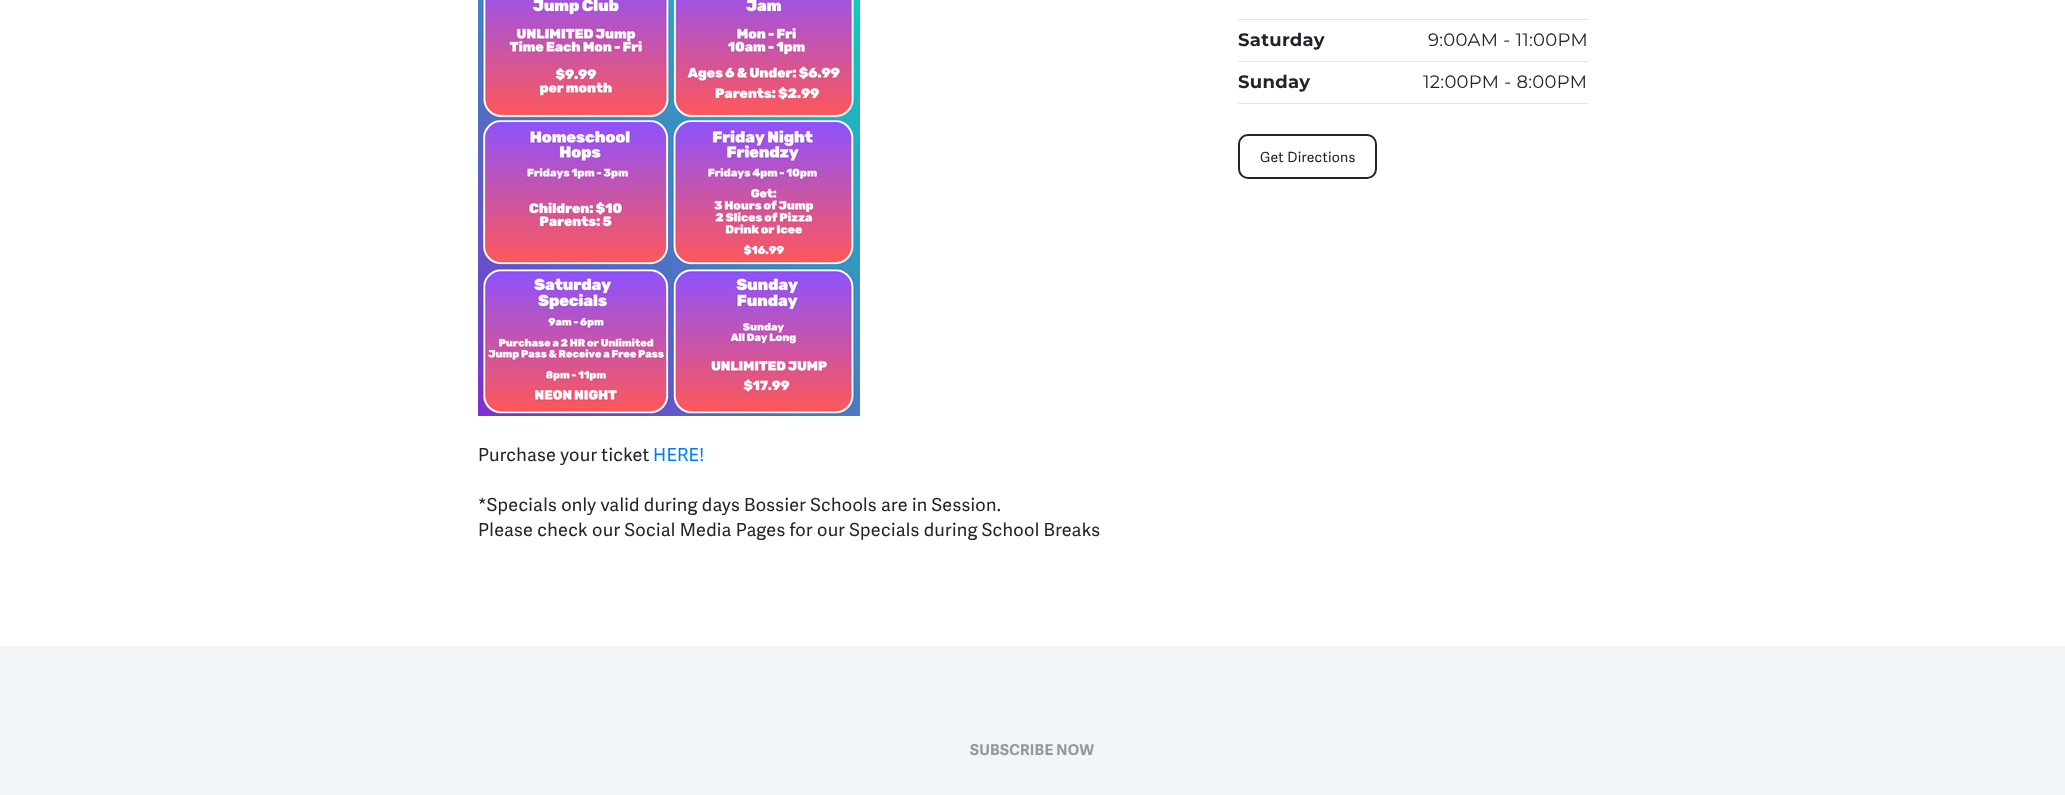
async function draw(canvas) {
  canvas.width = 2065;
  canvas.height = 795;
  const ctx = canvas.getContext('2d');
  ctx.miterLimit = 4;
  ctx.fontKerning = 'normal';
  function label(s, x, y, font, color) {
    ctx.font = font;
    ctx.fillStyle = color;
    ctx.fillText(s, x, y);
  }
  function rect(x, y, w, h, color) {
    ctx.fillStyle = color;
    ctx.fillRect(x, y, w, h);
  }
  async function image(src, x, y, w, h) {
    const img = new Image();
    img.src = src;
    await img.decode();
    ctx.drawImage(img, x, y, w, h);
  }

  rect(0, 0, 2065, 795, '#fff');
  rect(1238, 19, 350, 1, '#e5e5e5');
  rect(1238, 61, 350, 1, '#e5e5e5');
  ctx.letterSpacing = '0.28px';
  label('Saturday', 1238, 46, 'bold 18px Montserrat', '#212529');
  label('9:00AM - 11:00PM', 1428, 46, '18px Montserrat', '#212529');
  rect(1238, 103, 350, 1, '#e5e5e5');
  label('Sunday', 1238, 88, 'bold 18px Montserrat', '#212529');
  label('12:00PM - 8:00PM', 1423, 88, '18px Montserrat', '#212529');
  ctx.beginPath();
  ctx.roundRect(1239, 135, 137, 43, 9);
  ctx.strokeStyle = '#212529';
  ctx.lineWidth = 2;
  ctx.stroke();
  label('Get Directions', 1260, 162, '14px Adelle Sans', '#212529');
  await image('assets/img1.png', 478, 0, 382, 416);
  label('Purchase your ticket', 478, 461, '18px Adelle Sans', '#212529');
  label('HERE!', 653, 461, '18px Adelle Sans', '#007bff');
  label('*Specials only valid during days Bossier Schools are in Session.', 478, 511, '18px Adelle Sans', '#212529');
  label('Please check our Social Media Pages for our Specials during School Breaks', 478, 536, '18px Adelle Sans', '#212529');
  rect(0, 646, 2065, 149, '#f1f5f8');
  label('SUBSCRIBE NOW', 970, 755, 'bold 15px Adelle Sans', '#969799');
}

draw(document.querySelector('canvas'));
